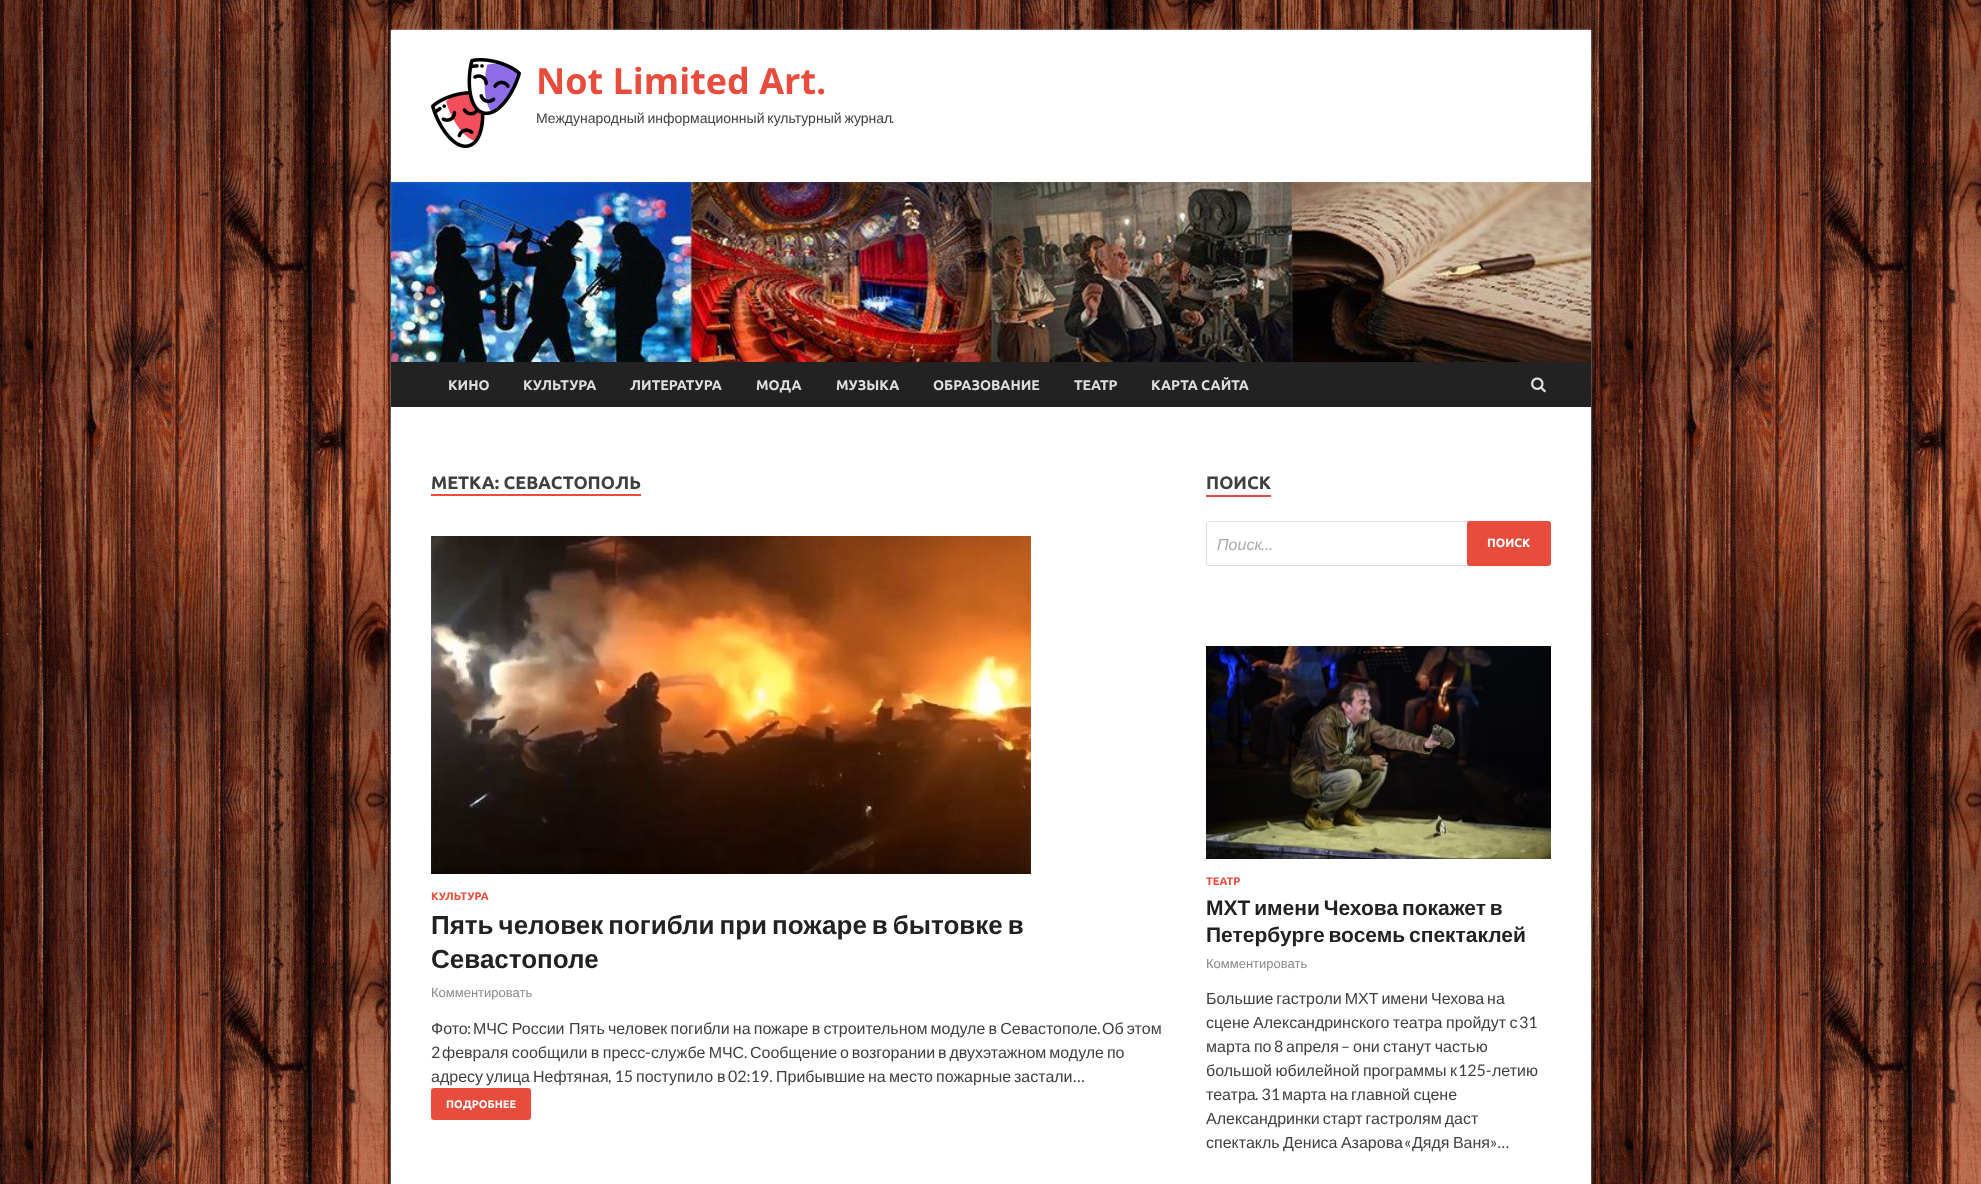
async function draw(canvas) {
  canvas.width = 1981;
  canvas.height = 1184;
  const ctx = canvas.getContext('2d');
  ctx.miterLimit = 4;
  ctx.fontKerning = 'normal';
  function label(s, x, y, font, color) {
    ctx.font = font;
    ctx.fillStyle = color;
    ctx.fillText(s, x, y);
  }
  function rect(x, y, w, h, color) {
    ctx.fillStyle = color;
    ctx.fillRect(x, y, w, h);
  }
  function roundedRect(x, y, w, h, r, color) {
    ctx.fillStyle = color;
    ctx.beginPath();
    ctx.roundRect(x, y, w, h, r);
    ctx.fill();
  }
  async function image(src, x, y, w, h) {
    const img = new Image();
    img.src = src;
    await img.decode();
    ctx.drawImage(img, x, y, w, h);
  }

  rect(0, 0, 1981, 1184, '#fff');
  await image('assets/img1.png', 0, 0, 1981, 1184);
  ctx.fillStyle = '#bbb';
  ctx.filter = 'blur(1px)';
  ctx.beginPath();
  ctx.rect(391, 30, 1200, 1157);
  ctx.fill();
  ctx.filter = 'none';
  rect(391, 30, 1200, 1154, '#fff');
  await image('assets/img2.png', 431, 58, 90, 90);
  label('Not Limited Art.', 536, 94, 'bold 36px Open Sans', '#e74c3c');
  ctx.wordSpacing = '-1px';
  label('Международный информационный культурный журнал', 536, 123, '14px Liberation Sans', '#404040');
  ctx.wordSpacing = '0px';
  label('.', 891, 123, '14px Lato', '#404040');
  await image('assets/img3.png', 391, 182, 1200, 180);
  rect(391, 362, 1200, 45, '#222');
  label('КИНО', 448, 390, 'bold 14px Ubuntu', '#ddd');
  label('КУЛЬТУРА', 523, 390, 'bold 14px Ubuntu', '#ddd');
  label('ЛИТЕРАТУРА', 630, 390, 'bold 14px Ubuntu', '#ddd');
  label('МОДА', 756, 390, 'bold 14px Ubuntu', '#ddd');
  label('МУЗЫКА', 836, 390, 'bold 14px Ubuntu', '#ddd');
  label('ОБРАЗОВАНИЕ', 933, 390, 'bold 14px Ubuntu', '#ddd');
  label('ТЕАТР', 1074, 390, 'bold 14px Ubuntu', '#ddd');
  label('КАРТА САЙТА', 1151, 390, 'bold 14px Ubuntu', '#ddd');
  await image('assets/img4.png', 1531, 377, 15, 16);
  label('МЕТКА: СЕВАСТОПОЛЬ', 431, 489, 'bold 18px Ubuntu', '#404040');
  rect(431, 494, 210, 2, '#e74c3c');
  await image('assets/img5.png', 431, 536, 600, 338);
  label('КУЛЬТУРА', 431, 900, 'bold 11px Ubuntu', '#e74c3c');
  ctx.wordSpacing = '-2.25px';
  label('Пять человек погибли при пожаре в бытовке в', 431, 934, 'bold 26px Liberation Sans', '#222');
  ctx.wordSpacing = '0px';
  label('Севастополе', 431, 968, 'bold 26px Liberation Sans', '#222');
  label('Комментировать', 431, 997, '13px Liberation Sans', '#888');
  label('Фото', 431, 1034, '16px Liberation Sans', '#404040');
  label(':', 467, 1034, '16px Lato', '#404040');
  ctx.wordSpacing = '-1px';
  label('МЧС России', 473, 1034, '16px Liberation Sans', '#404040');
  ctx.wordSpacing = '-1.25px';
  label('Пять человек погибли на пожаре в строительном модуле в Севастополе', 569, 1034, '16px Liberation Sans', '#404040');
  ctx.wordSpacing = '0px';
  label('.', 1097, 1034, '16px Lato', '#404040');
  ctx.wordSpacing = '-1.25px';
  label('Об этом', 1102, 1034, '16px Liberation Sans', '#404040');
  ctx.wordSpacing = '0px';
  label('2', 431, 1058, '16px Lato', '#404040');
  ctx.wordSpacing = '-1px';
  label('февраля сообщили в пресс', 442, 1058, '16px Liberation Sans', '#404040');
  ctx.wordSpacing = '0px';
  label('-', 645, 1058, '16px Lato', '#404040');
  ctx.wordSpacing = '-1px';
  label('службе МЧС', 651, 1058, '16px Liberation Sans', '#404040');
  ctx.wordSpacing = '-1.5px';
  label('Сообщение о возгорании в двухэтажном модуле по', 750, 1058, '16px Liberation Sans', '#404040');
  ctx.wordSpacing = '0px';
  label('.', 744, 1058, '16px Lato', '#404040');
  label('адресу', 431, 1082, '16px Liberation Sans', '#404040');
  label('улица', 486, 1082, '16px Liberation Sans', '#404040');
  label('Нефтяная', 533, 1082, '16px Liberation Sans', '#404040');
  label(', 15', 608, 1082, '16px Lato', '#404040');
  label('поступило', 636, 1082, '16px Liberation Sans', '#404040');
  label('в', 717, 1082, '16px Liberation Sans', '#404040');
  label('02:19.', 728, 1082, '16px Lato', '#404040');
  label('Прибывшие', 776, 1082, '16px Liberation Sans', '#404040');
  label('на', 868, 1082, '16px Liberation Sans', '#404040');
  label('место', 889, 1082, '16px Liberation Sans', '#404040');
  label('пожарные', 936, 1082, '16px Liberation Sans', '#404040');
  label('застали', 1014, 1082, '16px Liberation Sans', '#404040');
  label('…', 1073, 1082, '16px Lato', '#404040');
  roundedRect(431, 1088, 100, 32, 3, '#e74c3c');
  label('ПОДРОБНЕЕ', 446, 1108, 'bold 11px Ubuntu', '#fff');
  rect(1206, 495, 65, 2, '#e74c3c');
  label('ПОИСК', 1206, 489, 'bold 18px Ubuntu', '#404040');
  ctx.beginPath();
  ctx.roundRect(1206.5, 521.5, 344, 44, 2.5);
  ctx.strokeStyle = '#ddd';
  ctx.stroke();
  label('Поиск', 1217, 550, 'italic 16px Liberation Sans', '#aaa');
  label('…', 1261, 550, 'italic 16px Lato', '#aaa');
  roundedRect(1467, 521, 84, 45, 3, '#e74c3c');
  label('ПОИСК', 1487, 547, 'bold 12px Ubuntu', '#fff');
  await image('assets/img6.png', 1206, 646, 345, 213);
  label('ТЕАТР', 1206, 885, 'bold 11px Ubuntu', '#e74c3c');
  ctx.wordSpacing = '-2px';
  label('МХТ имени Чехова покажет в', 1206, 915, 'bold 21px Liberation Sans', '#222');
  label('Петербурге восемь спектаклей', 1206, 942, 'bold 21px Liberation Sans', '#222');
  ctx.wordSpacing = '0px';
  label('Комментировать', 1206, 968, '13px Liberation Sans', '#888');
  ctx.wordSpacing = '-1.5px';
  label('Большие гастроли МХТ имени Чехова на', 1206, 1004, '16px Liberation Sans', '#404040');
  ctx.wordSpacing = '-1px';
  label('сцене Александринского театра пройдут с', 1206, 1028, '16px Liberation Sans', '#404040');
  ctx.wordSpacing = '0px';
  label('31', 1519, 1028, '16px Lato', '#404040');
  ctx.wordSpacing = '-1px';
  label('марта по', 1206, 1052, '16px Liberation Sans', '#404040');
  ctx.wordSpacing = '0px';
  label('8', 1274, 1052, '16px Lato', '#404040');
  label('апреля', 1286, 1052, '16px Liberation Sans', '#404040');
  label('–', 1341, 1052, '16px Lato', '#404040');
  ctx.wordSpacing = '-1px';
  label('они станут частью', 1353, 1052, '16px Liberation Sans', '#404040');
  label('большой юбилейной программы к', 1206, 1076, '16px Liberation Sans', '#404040');
  ctx.wordSpacing = '0px';
  label('125-', 1458, 1076, '16px Lato', '#404040');
  label('летию', 1492, 1076, '16px Liberation Sans', '#404040');
  label('театра', 1206, 1100, '16px Liberation Sans', '#404040');
  label('. 31', 1255, 1100, '16px Lato', '#404040');
  ctx.wordSpacing = '-1px';
  label('марта на главной сцене', 1282, 1100, '16px Liberation Sans', '#404040');
  ctx.wordSpacing = '-1.5px';
  label('Александринки старт гастролям даст', 1206, 1124, '16px Liberation Sans', '#404040');
  ctx.wordSpacing = '-1px';
  label('спектакль Дениса Азарова', 1206, 1148, '16px Liberation Sans', '#404040');
  ctx.wordSpacing = '0px';
  label('«', 1404, 1148, '16px Lato', '#404040');
  ctx.wordSpacing = '-1px';
  label('Дядя Ваня', 1412, 1148, '16px Liberation Sans', '#404040');
  ctx.wordSpacing = '0px';
  label('»…', 1490, 1148, '16px Lato', '#404040');
}

draw(document.querySelector('canvas'));
